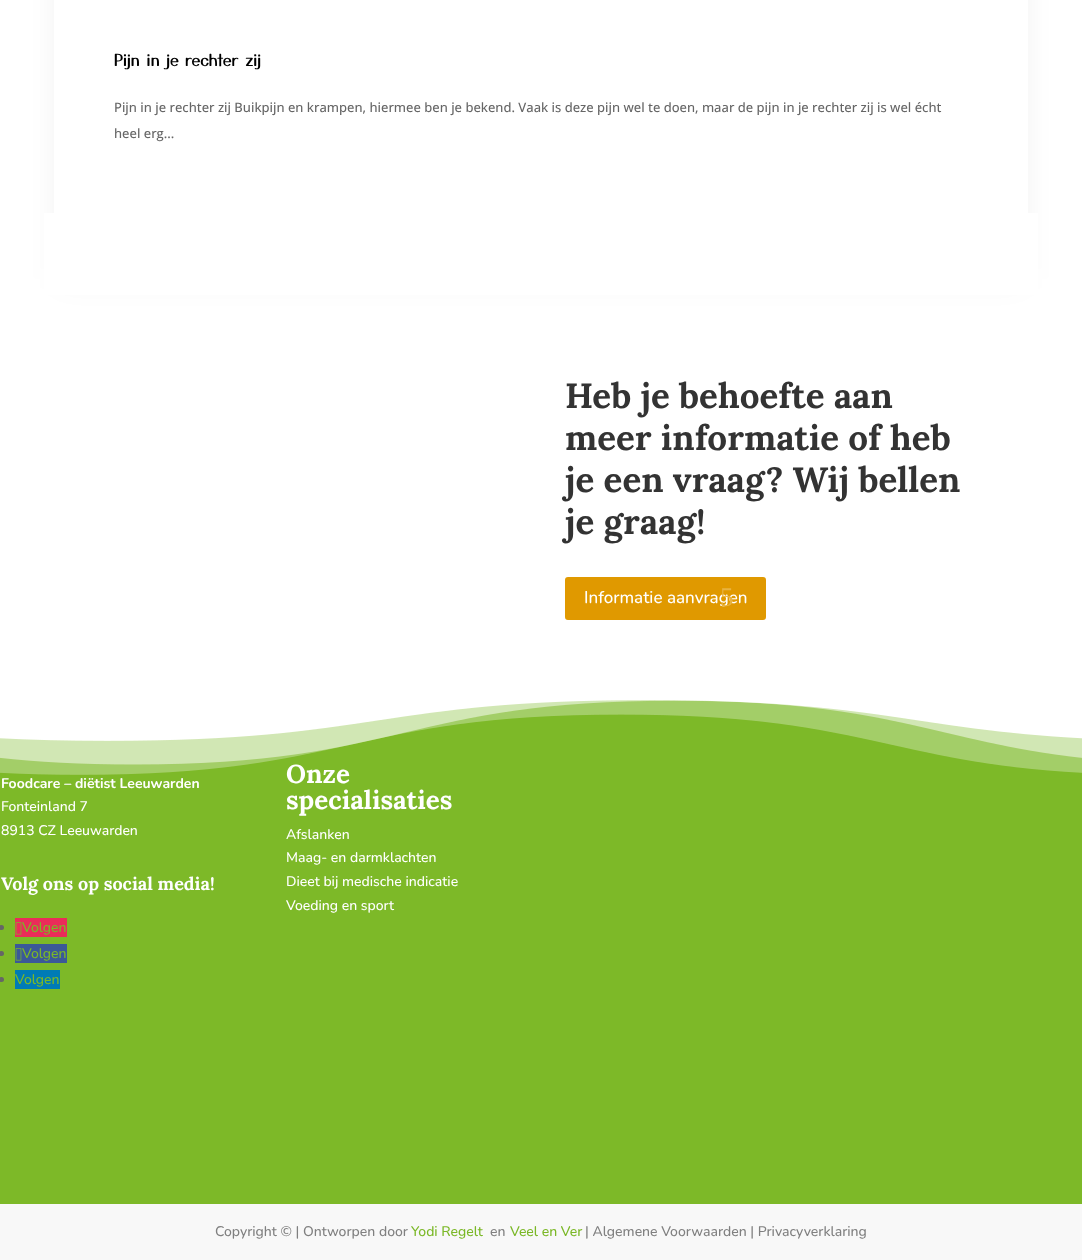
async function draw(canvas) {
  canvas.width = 1082;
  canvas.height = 1260;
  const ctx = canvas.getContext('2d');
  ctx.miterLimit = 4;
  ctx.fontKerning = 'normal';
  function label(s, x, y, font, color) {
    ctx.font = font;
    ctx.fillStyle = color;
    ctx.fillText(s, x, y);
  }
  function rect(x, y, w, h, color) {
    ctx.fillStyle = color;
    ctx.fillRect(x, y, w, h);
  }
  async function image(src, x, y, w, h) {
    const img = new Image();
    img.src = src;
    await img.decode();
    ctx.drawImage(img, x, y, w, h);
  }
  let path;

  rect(0, 0, 1082, 1260, '#fff');
  ctx.save();
  path = new Path2D('M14 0H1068V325H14ZM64-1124H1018C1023.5-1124 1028-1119.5 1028-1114V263C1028 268.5 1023.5 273 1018 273H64C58.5 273 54 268.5 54 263V-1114C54-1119.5 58.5-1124 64-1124Z');
  ctx.clip(path, 'evenodd');
  ctx.fillStyle = '#00000012';
  ctx.filter = 'blur(15px)';
  ctx.beginPath();
  ctx.roundRect(60, -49, 962, 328, 4);
  ctx.fill();
  ctx.filter = 'none';
  ctx.restore();
  label('Pijn in je rechter zij', 114, 66, '16px Yusei Magic', '#000');
  label('Pijn in je rechter zij Buikpijn en krampen, hiermee ben je bekend. Vaak is deze pijn wel te doen, maar de pijn in je rechter zij is wel écht', 114, 112, '500 13px Open Sans', '#666');
  label('heel erg...', 114, 138, '500 13px Open Sans', '#666');
  rect(44, 213, 994, 82, '#fff');
  label('Heb je behoefte aan', 565, 408, 'bold 35px Lora', '#333');
  label('meer informatie of heb', 565, 450, 'bold 35px Lora', '#333');
  label('je een vraag? Wij bellen', 565, 492, 'bold 35px Lora', '#333');
  label('je graag!', 565, 534, 'bold 35px Lora', '#333');
  ctx.fillStyle = '#e09900';
  ctx.beginPath();
  ctx.roundRect(566, 578, 199, 41, 2);
  ctx.fill();
  ctx.strokeStyle = '#e09900';
  ctx.lineWidth = 2;
  ctx.stroke();
  label('Informatie aanvragen', 584, 603, '200 17px Nunito', '#fff');
  label('5', 720, 606, '27px Liberation Serif', '#e8b341');
  rect(0, 700, 1082, 504, '#7db928');
  await image('assets/img1.png', 0, 676, 1082, 99);
  label('Foodcare – diëtist Leeuwarden', 1, 788, '200 14px "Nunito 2"', '#fff');
  label('Fonteinland 7', 1, 811, '200 14px Nunito', '#fff');
  label('8913 CZ Leeuwarden', 1, 835, '200 14px Nunito', '#fff');
  label('Volg ons op social media!', 1, 890, 'bold 18px Lora', '#fff');
  ctx.fillStyle = '#666';
  ctx.beginPath();
  ctx.arc(1.5, 927.5, 2.5, 0, 2 * Math.PI);
  ctx.fill();
  rect(15, 918, 52, 19, '#ea2c59');
  await image('assets/img2.png', 15, 922, 7, 13);
  label('Volgen', 22, 932, '200 14px Nunito', '#7bb827');
  ctx.fillStyle = '#666';
  ctx.beginPath();
  ctx.arc(1.5, 953.5, 2.5, 0, 2 * Math.PI);
  ctx.fill();
  rect(15, 944, 52, 19, '#3b5998');
  await image('assets/img3.png', 15, 948, 7, 13);
  label('Volgen', 22, 958, '200 14px Nunito', '#7bb827');
  ctx.fillStyle = '#666';
  ctx.beginPath();
  ctx.arc(1.5, 979.5, 2.5, 0, 2 * Math.PI);
  ctx.fill();
  rect(15, 970, 45, 19, '#007bb6');
  label('Volgen', 15, 984, '200 14px Nunito', '#7bb827');
  label('Onze', 286, 783, 'bold 26px Lora', '#fff');
  label('specialisaties', 286, 809, 'bold 26px Lora', '#fff');
  label('Afslanken', 286, 839, '200 14px Nunito', '#fff');
  label('Maag- en darmklachten', 286, 862, '200 14px Nunito', '#fff');
  label('Dieet bij medische indicatie', 286, 886, '200 14px Nunito', '#fff');
  label('Voeding en sport', 286, 910, '200 14px Nunito', '#fff');
  rect(0, 1204, 1082, 56, '#f8f8f8');
  label('Copyright © | Ontworpen door', 215, 1236, '200 14px Nunito', '#808080');
  label('Yodi Regelt', 411, 1236, '200 14px Nunito', '#7bb827');
  label('en', 490, 1236, '200 14px Nunito', '#808080');
  label('Veel en Ver', 510, 1236, '200 14px Nunito', '#7bb827');
  label('| Algemene Voorwaarden | Privacyverklaring', 585, 1236, '200 14px Nunito', '#808080');
}

draw(document.querySelector('canvas'));
